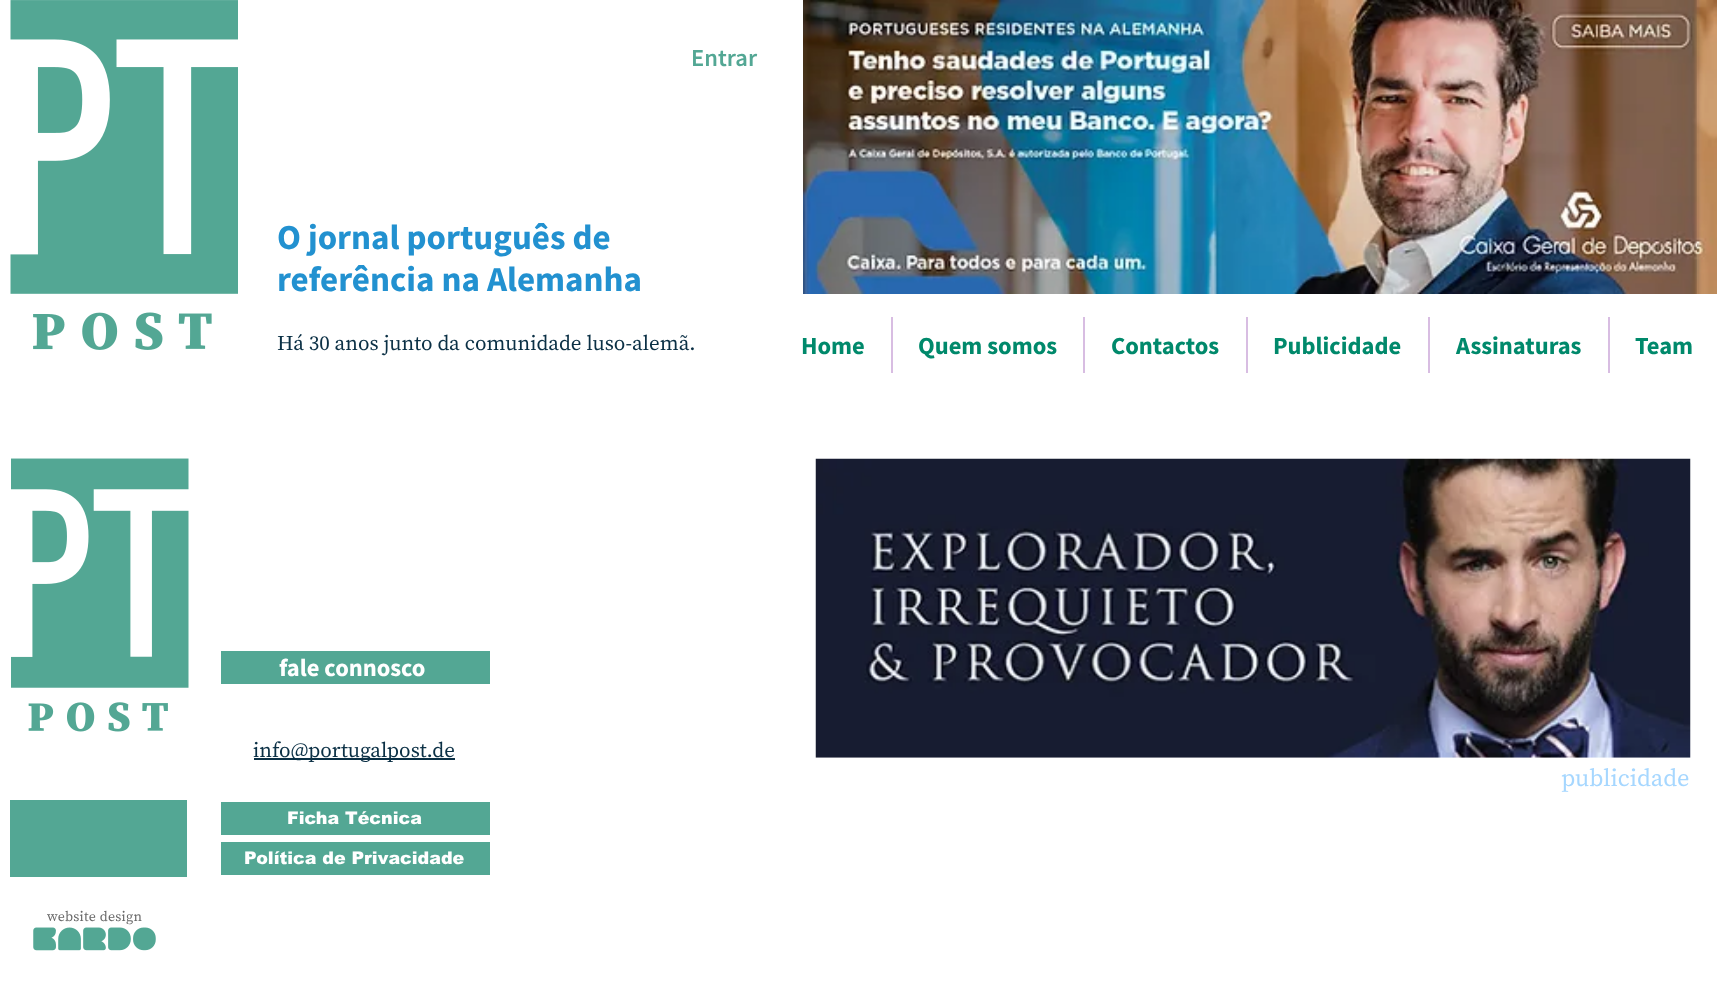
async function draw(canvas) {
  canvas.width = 1733;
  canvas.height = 991;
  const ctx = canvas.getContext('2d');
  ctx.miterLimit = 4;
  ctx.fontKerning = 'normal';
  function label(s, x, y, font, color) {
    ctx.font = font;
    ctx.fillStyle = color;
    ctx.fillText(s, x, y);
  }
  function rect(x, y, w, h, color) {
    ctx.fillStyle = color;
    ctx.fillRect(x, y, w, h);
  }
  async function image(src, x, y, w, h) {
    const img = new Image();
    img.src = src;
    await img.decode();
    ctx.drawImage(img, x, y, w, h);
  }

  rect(0, 0, 1733, 991, '#fff');
  await image('assets/img1.png', 10, 0, 228, 350);
  label('Entrar', 691, 66, '600 24.5px Source Sans Pro', '#53a794');
  await image('assets/img2.png', 803, 0, 914, 294);
  label('O jornal português de', 277, 249, 'bold 35px Source Sans Pro', '#2291d0');
  label('referência na Alemanha', 277, 291, 'bold 35px Source Sans Pro', '#2291d0');
  label('Há 30 anos junto da comunidade luso-alemã.', 277, 350, '21px Source Serif Pro', '#0b3045');
  label('Home', 801, 354, 'bold 24.5px Source Sans Pro', '#00896b');
  rect(891, 317, 2, 56, '#d8bde2');
  label('Quem somos', 918, 354, 'bold 24.5px Source Sans Pro', '#00896b');
  rect(1083, 317, 2, 56, '#d8bde2');
  label('Contactos', 1111, 354, 'bold 24.5px Source Sans Pro', '#00896b');
  rect(1246, 317, 2, 56, '#d8bde2');
  label('Publicidade', 1273, 354, 'bold 24.5px Source Sans Pro', '#00896b');
  rect(1428, 317, 2, 56, '#d8bde2');
  label('Assinaturas', 1456, 354, 'bold 24.5px Source Sans Pro', '#00896b');
  rect(1608, 317, 2, 56, '#d8bde2');
  label('Team', 1635, 354, 'bold 24.5px Source Sans Pro', '#00896b');
  await image('assets/img3.png', 11, 458, 178, 274);
  rect(221, 651, 269, 33, '#53a794');
  label('fale connosco', 279, 676, 'bold 24.5px Source Sans Pro', '#fff');
  rect(254, 758, 201, 2, '#0b3045');
  label('info@portugalpost.de', 253, 757, '21px Source Serif Pro', '#0b3045');
  await image('assets/img4.png', 815, 458, 876, 300);
  label('publicidade', 1561, 786, '24.5px Source Serif Pro', '#a6d7ff');
  rect(10, 800, 177, 77, '#53a794');
  rect(221, 802, 269, 33, '#53a794');
  label('Ficha Técnica', 287, 824, '900 17.5px arial', '#fff');
  rect(221, 842, 269, 33, '#53a794');
  label('Política de Privacidade', 244, 864, '900 17.5px arial', '#fff');
  ctx.letterSpacing = '0.25px';
  label('website design', 47, 921, '14px Source Serif Pro', '#696969');
  await image('assets/img5.png', 33, 927, 123, 24);
}

draw(document.querySelector('canvas'));
